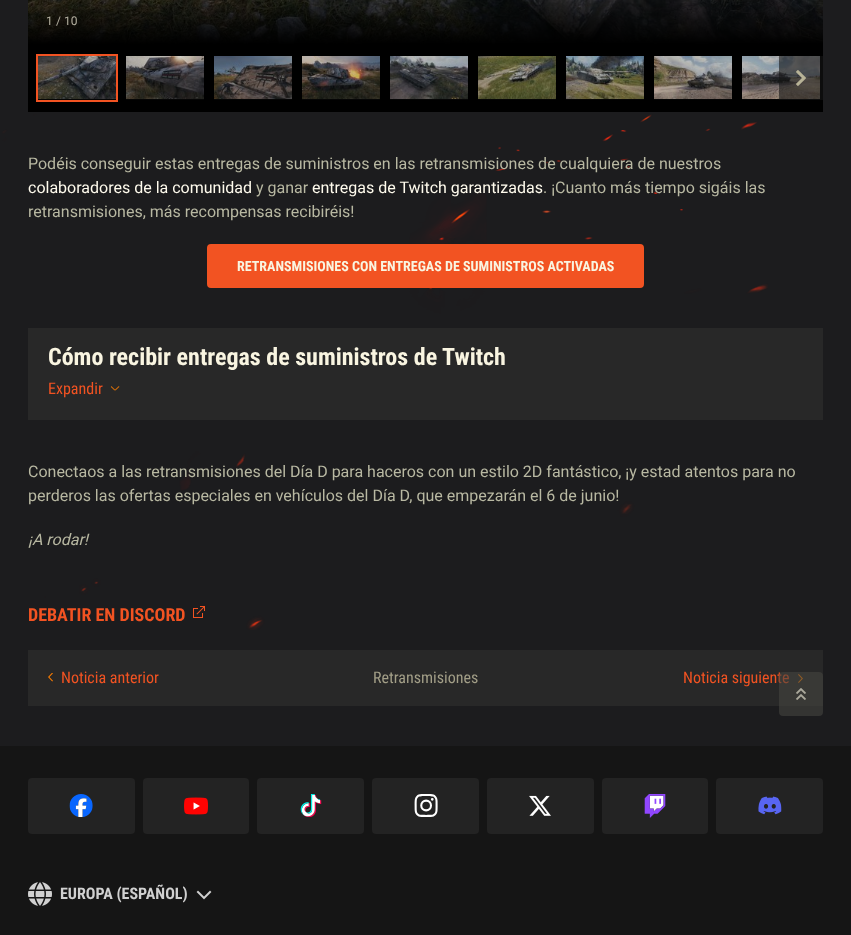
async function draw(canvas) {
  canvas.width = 851;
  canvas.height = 935;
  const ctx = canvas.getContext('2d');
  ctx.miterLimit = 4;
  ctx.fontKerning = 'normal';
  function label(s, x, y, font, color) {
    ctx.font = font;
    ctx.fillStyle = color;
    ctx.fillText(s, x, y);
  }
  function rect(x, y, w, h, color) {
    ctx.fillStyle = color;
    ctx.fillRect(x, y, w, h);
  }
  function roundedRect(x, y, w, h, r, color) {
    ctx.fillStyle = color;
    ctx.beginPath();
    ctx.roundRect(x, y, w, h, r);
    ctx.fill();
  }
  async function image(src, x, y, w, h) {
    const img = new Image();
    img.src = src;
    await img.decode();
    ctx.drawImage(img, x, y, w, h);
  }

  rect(0, 0, 851, 935, '#1c1c1e');
  await image('assets/img1.png', 28, 0, 795, 44);
  label('1', 46, 25, '12px Roboto', '#b5b1a1');
  label('/ 10', 56, 25, '12px Roboto', '#b5b1a1');
  rect(28, 44, 795, 68, '#000');
  rect(742, 99, 78, 1, '#060606');
  rect(566, 99, 78, 1, '#060606');
  rect(478, 99, 78, 1, '#060606');
  rect(390, 99, 78, 1, '#060606');
  rect(302, 99, 78, 1, '#060606');
  rect(214, 99, 78, 1, '#060606');
  rect(126, 99, 78, 1, '#060606');
  await image('assets/img2.png', 38, 56, 78, 43);
  ctx.fillStyle = '#1c1c1e33';
  ctx.beginPath();
  ctx.rect(37, 55, 80, 46);
  ctx.fill();
  ctx.strokeStyle = '#f25322';
  ctx.lineWidth = 2;
  ctx.stroke();
  await image('assets/img3.png', 126, 56, 78, 43);
  await image('assets/img4.png', 214, 56, 78, 43);
  await image('assets/img5.png', 302, 56, 78, 43);
  await image('assets/img6.png', 390, 56, 78, 43);
  await image('assets/img7.png', 478, 56, 78, 43);
  await image('assets/img8.png', 566, 56, 78, 43);
  await image('assets/img9.png', 654, 56, 78, 43);
  rect(654, 56, 78, 44, '#1c1c1e33');
  await image('assets/img10.png', 742, 56, 78, 43);
  rect(779, 56, 44, 44, '#15151599');
  await image('assets/img11.png', 796, 70, 10, 16);
  await image('assets/img17.png', 2, 114, 766, 516);
  label('Podéis conseguir estas entregas de suministros en las retransmisiones de cualquiera de nuestros', 28, 169, '16px Roboto', '#b8b8a2');
  label('colaboradores de la comunidad', 28, 193, '16px Roboto', '#fffbed');
  label('y ganar', 256, 193, '16px Roboto', '#b8b8a2');
  label('entregas de Twitch garantizadas', 312, 193, '16px Roboto', '#fffbed');
  label('. ¡Cuanto más tiempo sigáis las', 543, 193, '16px Roboto', '#b8b8a2');
  label('retransmisiones, más recompensas recibiréis!', 28, 217, '16px Roboto', '#b8b8a2');
  ctx.fillStyle = '#f25322';
  ctx.beginPath();
  ctx.roundRect(208, 245, 435, 42, 3);
  ctx.fill();
  ctx.stroke();
  label('RETRANSMISIONES CON ENTREGAS DE SUMINISTROS ACTIVADAS', 237, 271, 'bold 14px Roboto Condensed', '#f9f5e1');
  rect(28, 328, 795, 92, '#282828');
  label('Cómo recibir entregas de suministros de Twitch', 48, 365, 'bold 24px Roboto Condensed', '#f9f5e1');
  label('Expandir', 48, 394, '16px Roboto Condensed', '#f25322');
  await image('assets/img12.png', 110, 386, 10, 5);
  label('Conectaos a las retransmisiones del Día D para haceros con un estilo 2D fantástico, ¡y estad atentos para no', 28, 477, '16px Roboto', '#b8b8a2');
  label('perderos las ofertas especiales en vehículos del Día D, que empezarán el 6 de junio!', 28, 501, '16px Roboto', '#b8b8a2');
  label('¡A rodar!', 28, 545, 'italic 16px Roboto', '#b8b8a2');
  label('DEBATIR EN DISCORD', 28, 621, 'bold 18px Roboto Condensed', '#f25322');
  await image('assets/img13.png', 193, 606, 12, 12);
  rect(28, 650, 795, 56, '#282828');
  await image('assets/img14.png', 48, 673, 5, 9);
  label('Noticia anterior', 61, 683, '16px Roboto Condensed', '#f25322');
  label('Retransmisiones', 373, 683, '16px Roboto Condensed', '#a29e87');
  label('Noticia siguiente', 683, 683, '16px Roboto Condensed', '#f25322');
  await image('assets/img15.png', 798, 674, 5, 9);
  roundedRect(779, 672, 44, 44, 4, '#45454099');
  await image('assets/img16.png', 796, 688, 10, 12);
  rect(0, 746, 851, 189, '#151515');
  roundedRect(28, 778, 107, 56, 4, '#232323');
  await image('assets/img18.png', 69, 794, 24, 23);
  roundedRect(143, 778, 106, 56, 4, '#232323');
  await image('assets/img19.png', 184, 797, 24, 18);
  roundedRect(257, 778, 107, 56, 4, '#232323');
  await image('assets/img20.png', 300, 794, 22, 23);
  roundedRect(372, 778, 107, 56, 4, '#232323');
  await image('assets/img21.png', 414, 794, 24, 23);
  roundedRect(487, 778, 107, 56, 4, '#232323');
  await image('assets/img22.png', 529, 795, 22, 21);
  roundedRect(602, 778, 106, 56, 4, '#232323');
  await image('assets/img23.png', 644, 794, 22, 24);
  roundedRect(716, 778, 107, 56, 4, '#232323');
  await image('assets/img24.png', 758, 796, 24, 19);
  await image('assets/img25.png', 28, 882, 24, 24);
  label('EUROPA (ESPAÑOL)', 60, 899, 'bold 16px Roboto Condensed', '#d0d0d0');
  await image('assets/img26.png', 196, 890, 16, 10);
}

draw(document.querySelector('canvas'));
